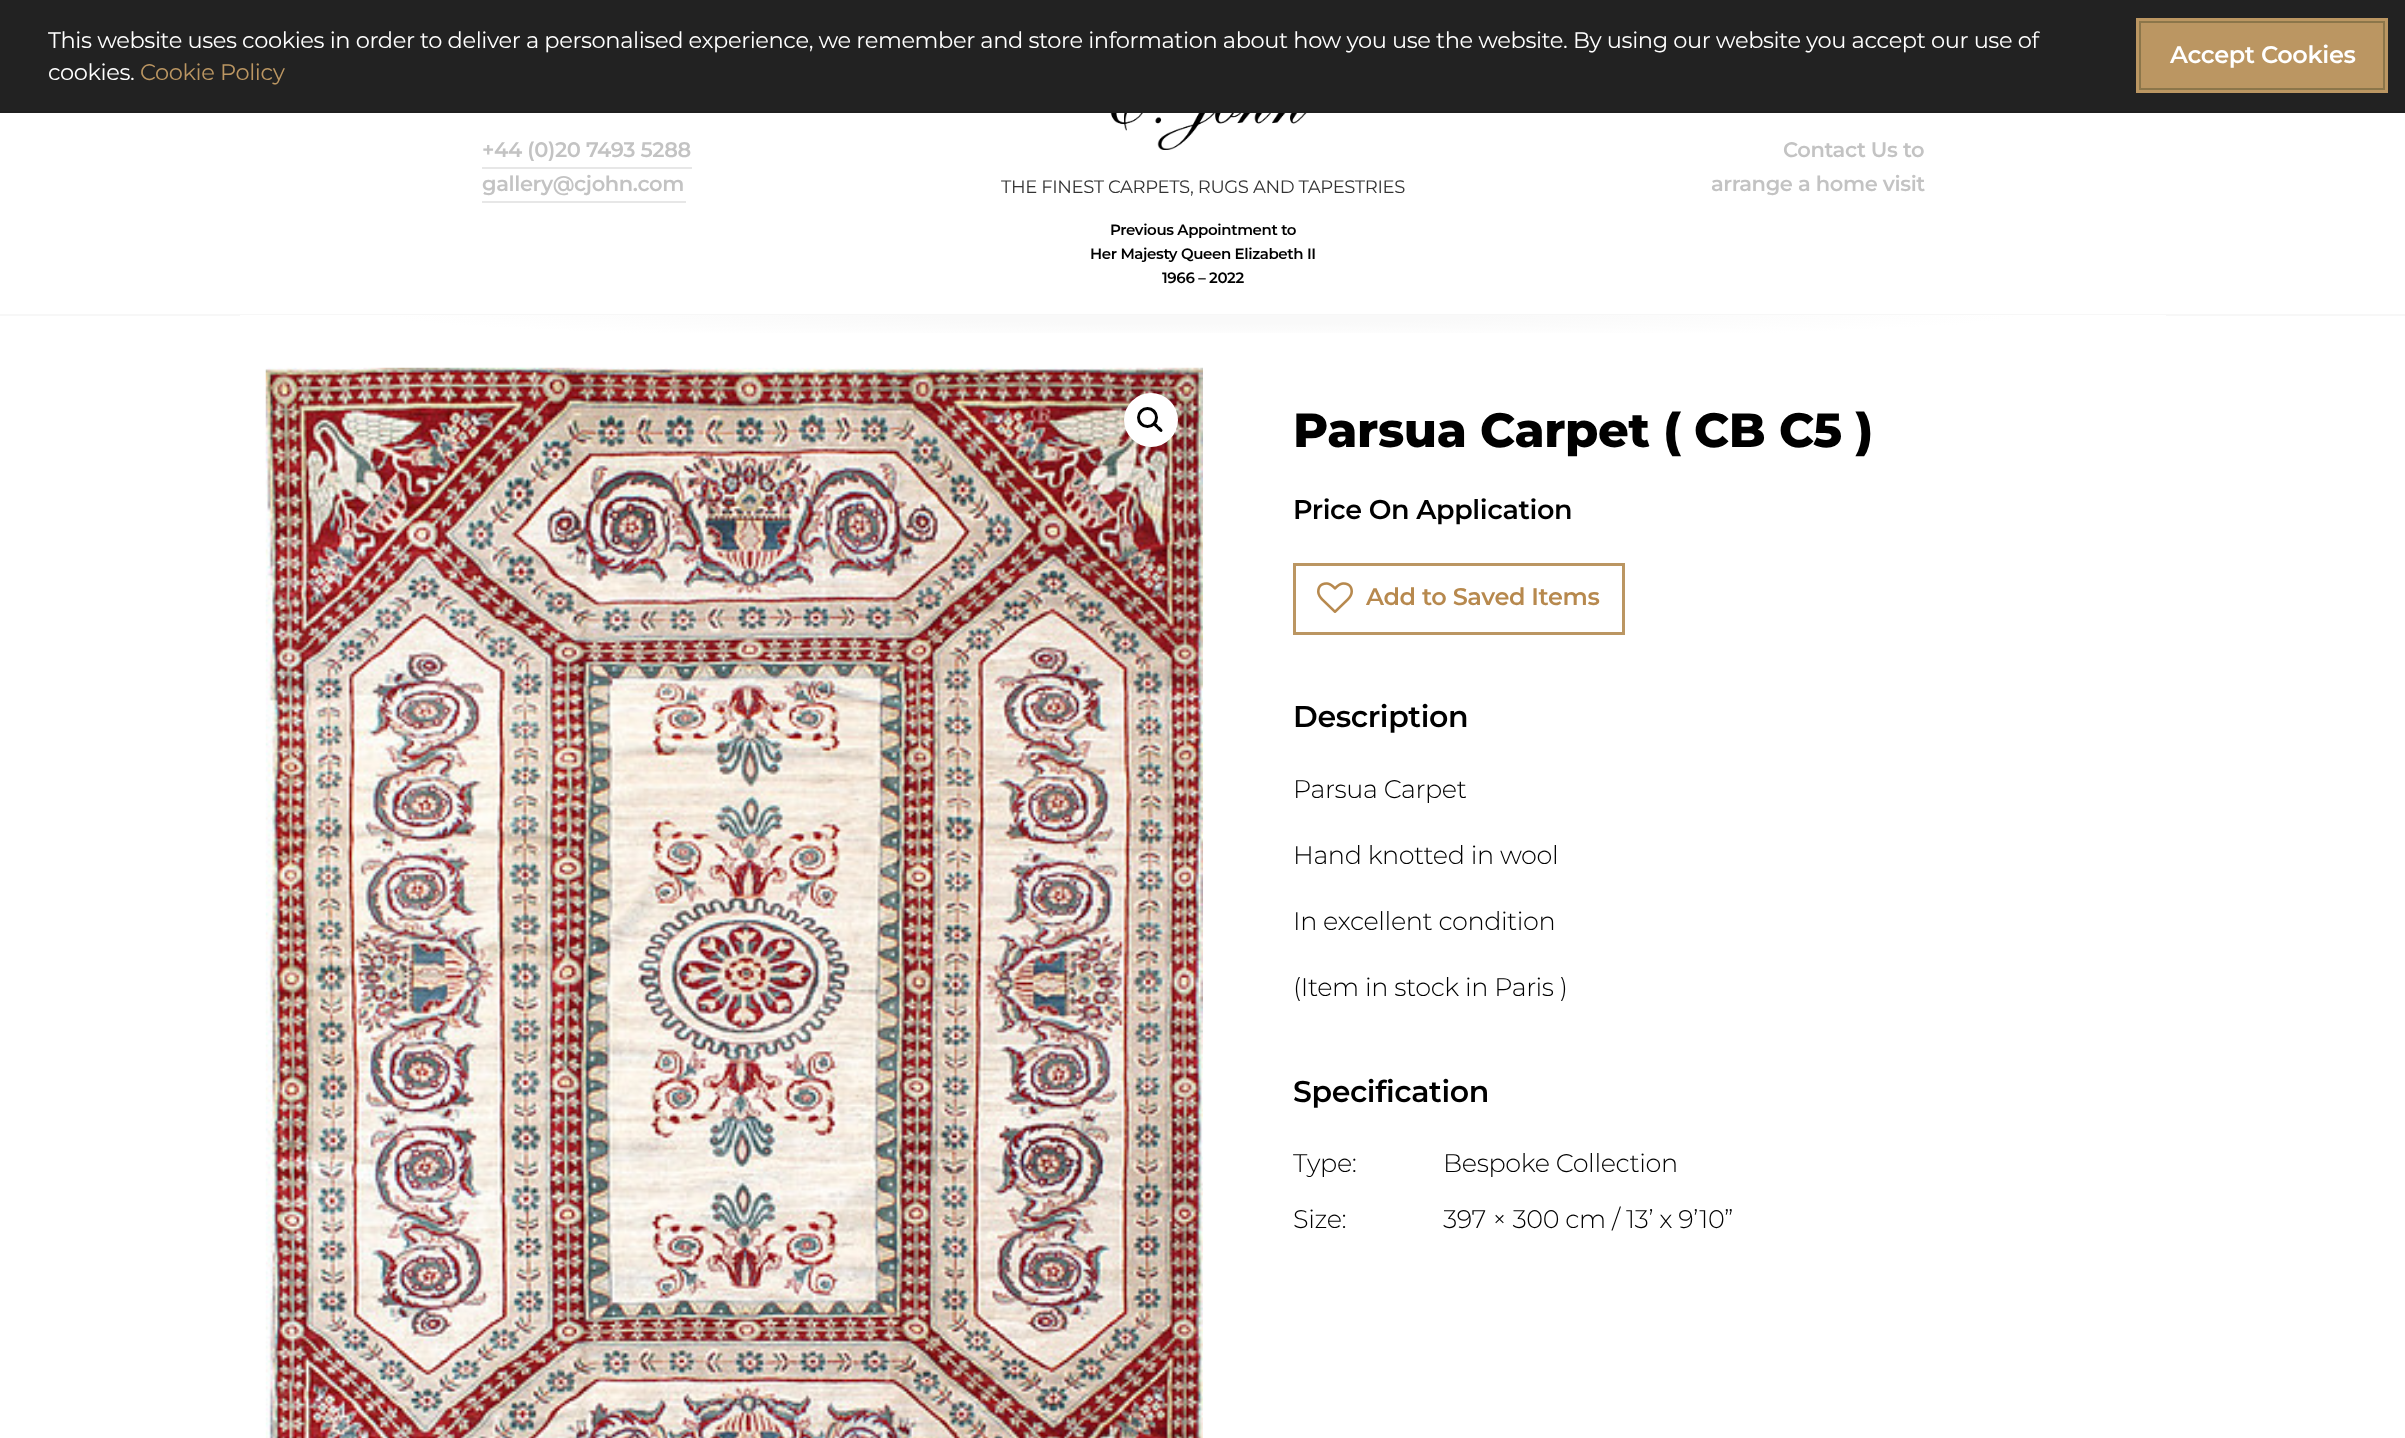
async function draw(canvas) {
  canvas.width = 2405;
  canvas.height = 1438;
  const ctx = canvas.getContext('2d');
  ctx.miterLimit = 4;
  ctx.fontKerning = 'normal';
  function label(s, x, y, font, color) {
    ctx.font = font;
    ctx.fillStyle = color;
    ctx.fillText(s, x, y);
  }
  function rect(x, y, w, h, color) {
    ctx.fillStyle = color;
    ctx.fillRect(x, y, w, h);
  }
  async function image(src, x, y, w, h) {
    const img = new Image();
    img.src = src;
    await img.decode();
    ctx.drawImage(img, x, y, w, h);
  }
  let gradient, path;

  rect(0, 0, 2405, 1438, '#fff');
  rect(0, 0, 2405, 111, '#222');
  rect(0, 111, 2405, 2, '#1f1f1f');
  ctx.letterSpacing = '-0.38px';
  label('This website uses cookies in order to deliver a personalised experience, we remember and store information about how you use the website. By using our website you accept our use of', 48, 48, '22.5px Montserrat', '#fff');
  label('cookies.', 48, 80, '22.5px Montserrat', '#fff');
  label('Cookie Policy', 140, 80, '22.5px Montserrat', '#bb9662');
  rect(2136, 18, 252, 75, '#bb9662');
  ctx.strokeStyle = '#8c764a';
  ctx.lineWidth = 2;
  ctx.strokeRect(2140, 22, 244, 67);
  label('Accept Cookies', 2170, 63, '600 24px Montserrat', '#fff');
  rect(0, 314, 2405, 2, '#f7f7f7');
  label('+44 (0)20 7493 5288', 482, 157, '600 21px Montserrat', '#c3c3c3');
  rect(482, 167, 210, 2, '#e7e7e7');
  label('gallery@cjohn.com', 482, 191, '600 21px Montserrat', '#c3c3c3');
  rect(482, 201, 204, 2, '#e7e7e7');
  label('Contact Us to', 1783, 157, '600 21px Montserrat', '#c3c3c3');
  label('arrange a home visit', 1711, 191, '600 21px Montserrat', '#c3c3c3');
  await image('assets/img1.png', 1110, 113, 197, 37);
  label('THE FINEST CARPETS, RUGS AND TAPESTRIES', 1001, 193, '18px Montserrat', '#333');
  label('Previous Appointment to', 1110, 235, '600 15px Montserrat', '#000');
  label('Her Majesty Queen Elizabeth II', 1090, 259, '600 15px Montserrat', '#000');
  label('1966 – 2022', 1162, 283, '600 15px Montserrat', '#000');
  gradient = ctx.createRadialGradient(1203, 10215, 0, 1203, 10215, 1362);
  gradient.addColorStop(0.2, '#f9f9f9');
  gradient.addColorStop(0.6, '#fff');
  ctx.fillStyle = gradient;
  ctx.beginPath();
  ctx.rect(240, 315, 1926, 18);
  ctx.save();
  ctx.clip();
  ctx.scale(1, 42 / 1362);
  ctx.fillRect(0, 0, 2405, 46633);
  ctx.restore();
  await image('assets/img2.png', 265, 367, 938, 1071);
  ctx.fillStyle = '#fff';
  ctx.beginPath();
  ctx.arc(1151, 420, 27, 0, 2 * Math.PI);
  ctx.fill();
  ctx.beginPath();
  ctx.arc(1147.5, 417.5, 9, 0, 2 * Math.PI);
  ctx.strokeStyle = '#000';
  ctx.lineWidth = 3;
  ctx.stroke();
  ctx.fillStyle = '#000';
  path = new Path2D('M1154 423C1155.5 421.5 1158 425.5 1159 426.5C1160 427 1164 430 1162 431.5C1160.5 433.5 1158 429.5 1157 428.5C1156 427.5 1152 425 1154 423Z');
  ctx.fill(path);
  label('Parsua Carpet ( CB C5 )', 1293, 447, '800 48px Montserrat', '#000');
  label('Price On Application', 1293, 519, '600 27px Montserrat', '#000');
  ctx.strokeStyle = '#bb9662';
  ctx.strokeRect(1294.5, 564.5, 329, 69);
  await image('assets/img3.png', 1317, 582, 36, 31);
  label('Add to Saved Items', 1366, 605, '600 24px Montserrat', '#b7894e');
  label('Description', 1293, 727, '600 30px Montserrat', '#000');
  label('Parsua Carpet', 1293, 798, '300 25.5px Montserrat', '#000');
  label('Hand knotted in wool', 1293, 864, '300 25.5px Montserrat', '#000');
  label('In excellent condition', 1293, 930, '300 25.5px Montserrat', '#000');
  label('(Item in stock in Paris )', 1293, 996, '300 25.5px Montserrat', '#000');
  label('Specification', 1293, 1102, '600 30px Montserrat', '#000');
  label('Type:', 1293, 1172, '300 25.5px Montserrat', '#000');
  label('Bespoke Collection', 1443, 1172, '300 25.5px Montserrat', '#000');
  label('Size:', 1293, 1228, '300 25.5px Montserrat', '#000');
  label('397 × 300 cm / 13’ x 9’10”', 1443, 1228, '300 25.5px Montserrat', '#000');
}

draw(document.querySelector('canvas'));
